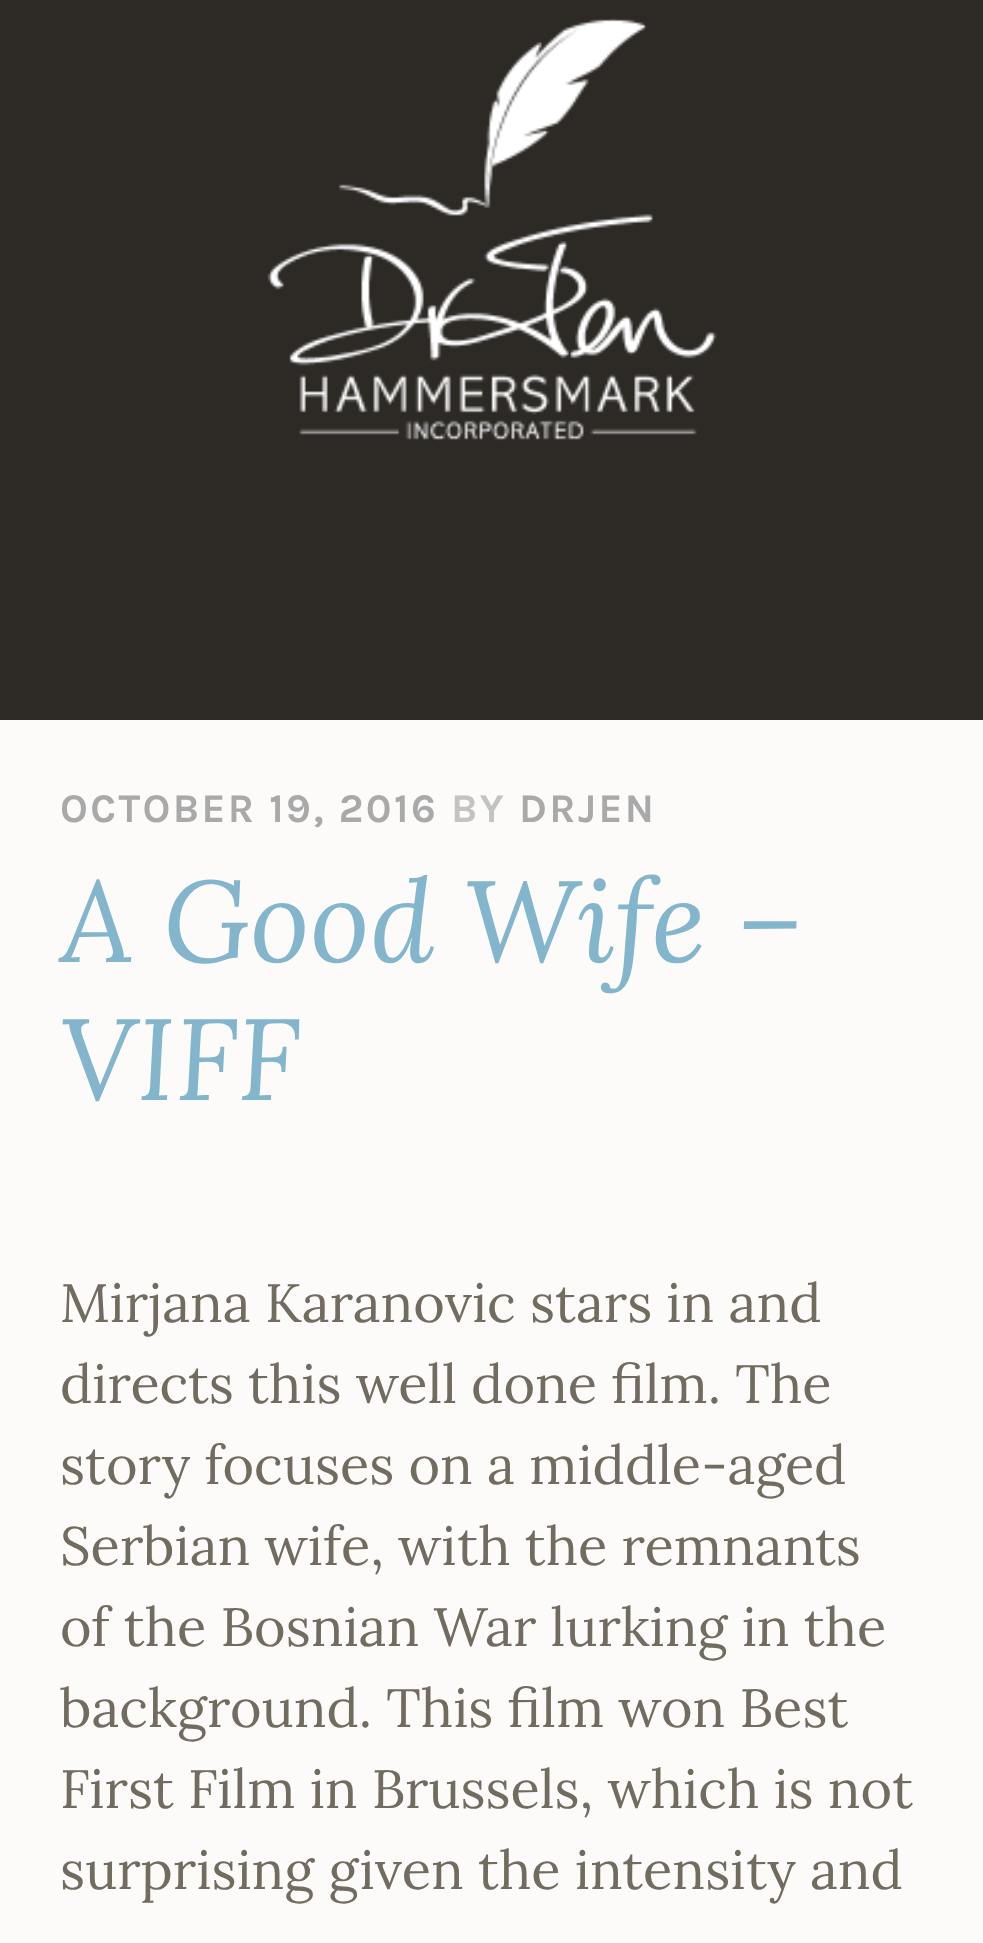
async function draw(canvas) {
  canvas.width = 983;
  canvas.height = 1943;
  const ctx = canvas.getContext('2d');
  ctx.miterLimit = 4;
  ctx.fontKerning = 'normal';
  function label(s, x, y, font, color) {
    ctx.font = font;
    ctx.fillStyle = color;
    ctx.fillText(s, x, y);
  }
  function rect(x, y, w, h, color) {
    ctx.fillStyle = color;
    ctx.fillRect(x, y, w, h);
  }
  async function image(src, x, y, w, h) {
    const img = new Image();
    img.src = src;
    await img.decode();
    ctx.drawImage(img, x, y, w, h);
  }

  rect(0, 0, 983, 1943, '#fcfbfa');
  rect(0, 0, 983, 720, '#2d2a26');
  await image('assets/img1.png', 267, 17, 450, 424);
  ctx.letterSpacing = '2.4px';
  label('OCTOBER 19, 2016', 60, 822, 'bold 40.75px Karla', '#a9a9a9');
  label('BY', 451, 822, 'bold 40.75px Karla', '#c3c3c3');
  label('DRJEN', 519, 822, 'bold 40.75px Karla', '#a9a9a9');
  ctx.letterSpacing = '0px';
  label('A Good Wife –', 60, 962, 'italic 115.25px Lora', '#83b6cc');
  label('VIFF', 60, 1100, 'italic 115.25px Lora', '#83b6cc');
  label('Mirjana Karanovic stars in and', 60, 1322, '54px Lora', '#726b60');
  label('directs this well done film. The', 60, 1403, '54px Lora', '#726b60');
  label('story focuses on a middle-aged', 60, 1484, '54px Lora', '#726b60');
  label('Serbian wife, with the remnants', 60, 1565, '54px Lora', '#726b60');
  label('of the Bosnian War lurking in the', 60, 1646, '54px Lora', '#726b60');
  label('background. This film won Best', 60, 1727, '54px Lora', '#726b60');
  label('First Film in Brussels, which is not', 60, 1808, '54px Lora', '#726b60');
  label('surprising given the intensity and', 60, 1889, '54px Lora', '#726b60');
}

draw(document.querySelector('canvas'));
